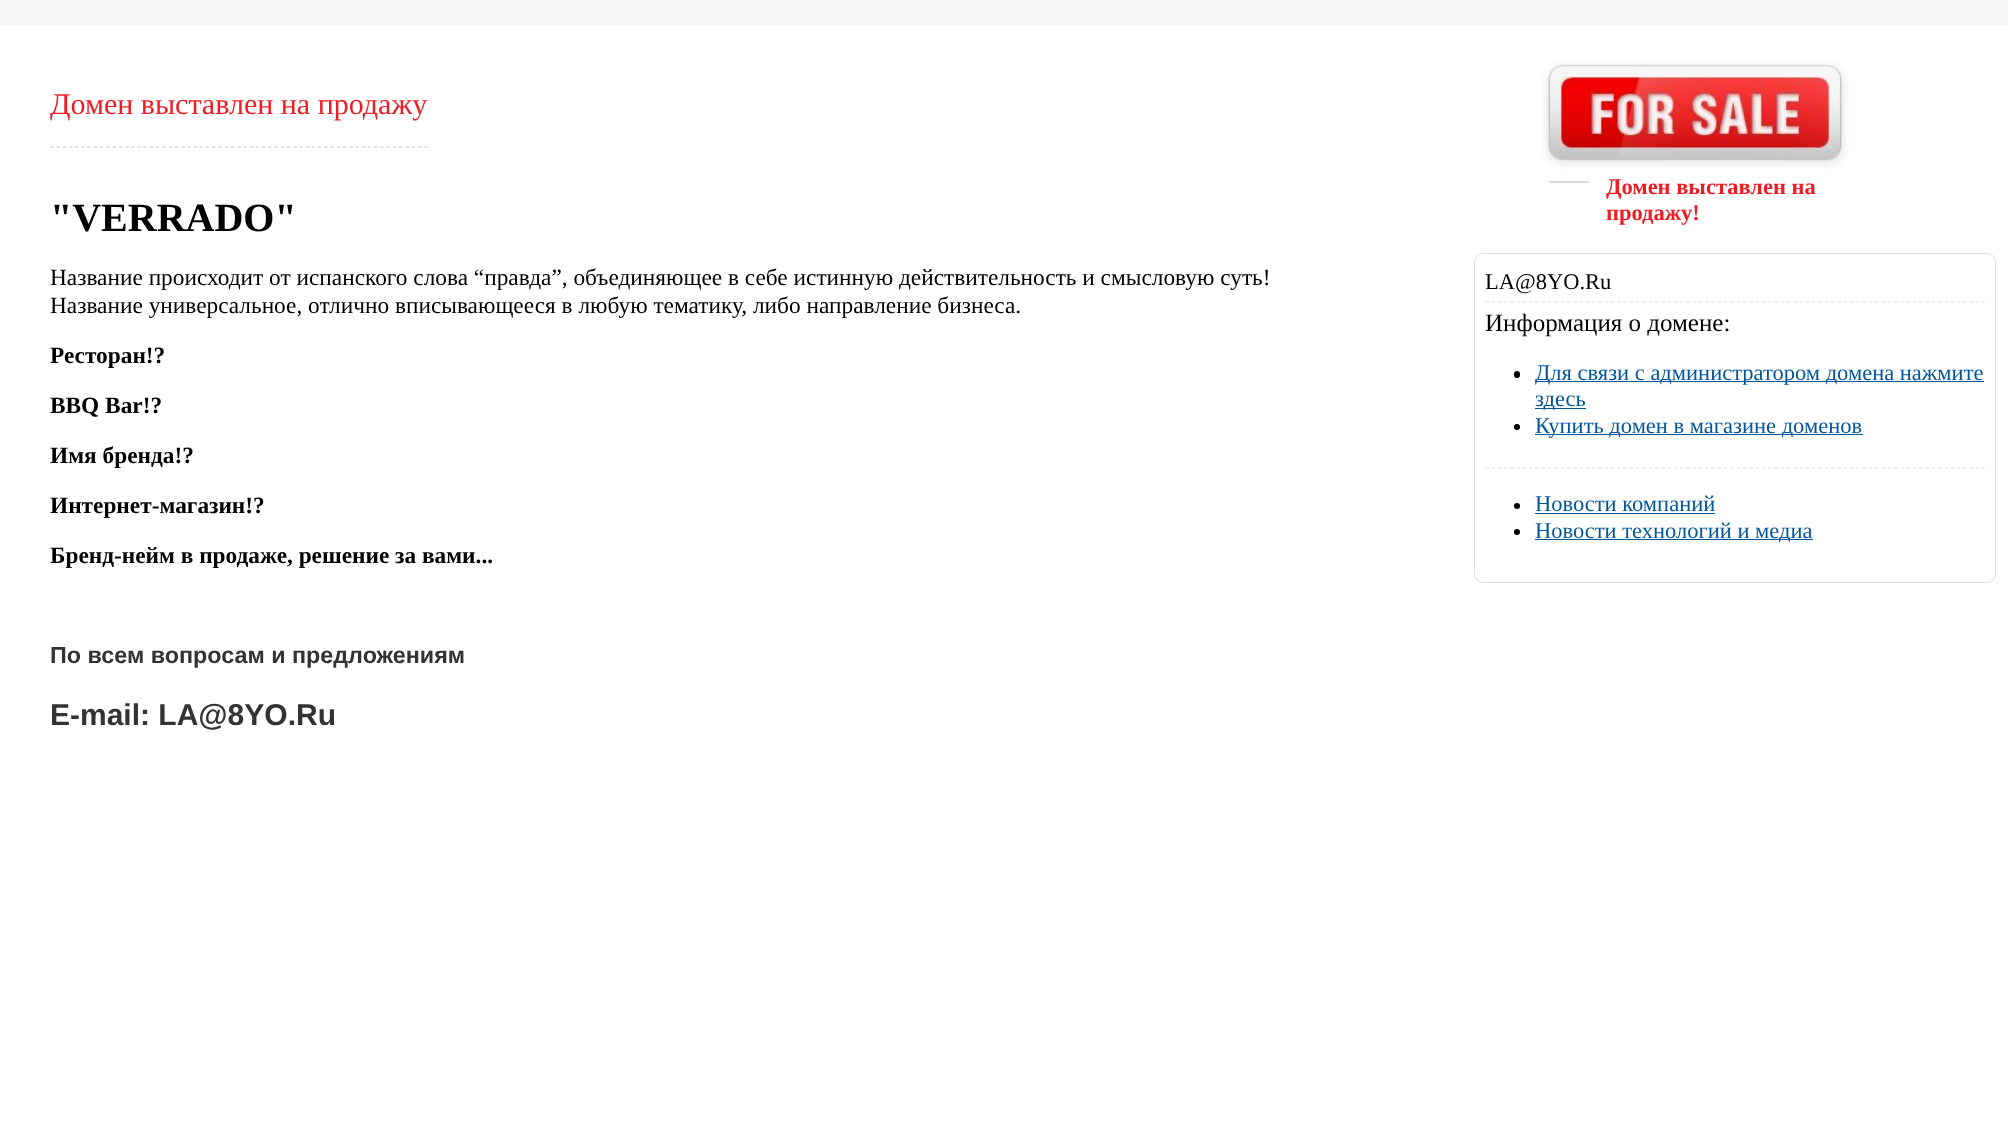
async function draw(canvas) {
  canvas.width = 2008;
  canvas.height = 1134;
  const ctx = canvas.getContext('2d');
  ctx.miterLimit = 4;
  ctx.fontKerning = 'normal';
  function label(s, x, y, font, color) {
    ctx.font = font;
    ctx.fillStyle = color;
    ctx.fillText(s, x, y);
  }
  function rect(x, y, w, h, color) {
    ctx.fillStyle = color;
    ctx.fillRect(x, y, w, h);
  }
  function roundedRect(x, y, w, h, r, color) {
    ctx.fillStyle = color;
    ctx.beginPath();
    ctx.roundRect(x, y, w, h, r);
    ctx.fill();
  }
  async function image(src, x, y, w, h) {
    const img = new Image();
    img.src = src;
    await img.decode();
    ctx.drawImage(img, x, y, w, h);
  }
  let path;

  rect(0, 0, 2008, 1134, '#fff');
  rect(0, 0, 2008, 25, '#f5f5f5');
  path = new Path2D('M50 147H427.5');
  ctx.strokeStyle = '#ccc';
  ctx.lineWidth = 1.2;
  ctx.setLineDash([3.75, 2.48]);
  ctx.stroke(path);
  label('Домен выставлен на продажу', 50, 114, '30px Liberation Serif', '#f11b23');
  label('"VERRADO"', 50, 231, 'bold 40px Liberation Serif', '#000');
  await image('assets/img1.png', 1542, 59, 307, 110);
  await image('assets/img2.png', 1548, 181, 41, 2);
  label('Домен выставлен на', 1606, 194, 'bold 22.5px Liberation Serif', '#f11b23');
  label('продажу!', 1606, 220, 'bold 22.5px Liberation Serif', '#f11b23');
  ctx.beginPath();
  ctx.roundRect(1474.5, 253.5, 521, 329, 8.5);
  ctx.strokeStyle = '#dedede';
  ctx.lineWidth = 1;
  ctx.setLineDash([]);
  ctx.stroke();
  path = new Path2D('M1485 302H1985');
  ctx.strokeStyle = '#e0e0e0';
  ctx.lineWidth = 1.2;
  ctx.setLineDash([3.75, 2.54]);
  ctx.stroke(path);
  label('LA@8YO.Ru', 1485, 289, '22.5px Liberation Serif', '#000');
  path = new Path2D('M1485 468H1985');
  ctx.stroke(path);
  label('Информация о домене:', 1485, 331, '25px Liberation Serif', '#000');
  roundedRect(1514, 371, 6, 7, 3, '#000');
  rect(1535, 381, 449, 1, '#01559d');
  label('Для связи с администратором домена нажмите', 1535, 380, '22.5px Liberation Serif', '#01559d');
  rect(1535, 408, 51, 1, '#01559d');
  label('здесь', 1535, 406, '22.5px Liberation Serif', '#01559d');
  ctx.fillStyle = '#000';
  ctx.beginPath();
  ctx.arc(1517, 427, 3, 0, 2 * Math.PI);
  ctx.fill();
  rect(1535, 434, 328, 1, '#01559d');
  label('Купить домен в магазине доменов', 1535, 433, '22.5px Liberation Serif', '#01559d');
  ctx.fillStyle = '#000';
  ctx.beginPath();
  ctx.arc(1517, 506, 3, 0, 2 * Math.PI);
  ctx.fill();
  label('Новости компаний', 1535, 511, '22.5px Liberation Serif', '#01559d');
  rect(1535, 513, 180, 1, '#01559d');
  ctx.fillStyle = '#000';
  ctx.beginPath();
  ctx.arc(1517, 532, 3, 0, 2 * Math.PI);
  ctx.fill();
  rect(1535, 539, 278, 1, '#01559d');
  label('Новости технологий и медиа', 1535, 538, '22.5px Liberation Serif', '#01559d');
  label('Название происходит от испанского слова “правда”, объединяющее в себе истинную действительность и смысловую суть!', 50, 285, '23.33px Liberation Serif', '#000');
  label('Название универсальное, отлично вписывающееся в любую тематику, либо направление бизнеса.', 50, 313, '23.33px Liberation Serif', '#000');
  label('Ресторан!?', 50, 363, 'bold 23.33px Liberation Serif', '#000');
  label('BBQ Bar!?', 50, 413, 'bold 23.33px Liberation Serif', '#000');
  label('Имя бренда!?', 50, 463, 'bold 23.33px Liberation Serif', '#000');
  label('Интернет-магазин!?', 50, 513, 'bold 23.33px Liberation Serif', '#000');
  label('Бренд-нейм в продаже, решение за вами...', 50, 563, 'bold 23.33px Liberation Serif', '#000');
  label('По всем вопросам и предложениям', 50, 663, 'bold 23.33px Liberation Sans', '#333');
  label('E-mail: LA@8YO.Ru', 50, 725, 'bold 30px Liberation Sans', '#333');
}

draw(document.querySelector('canvas'));
